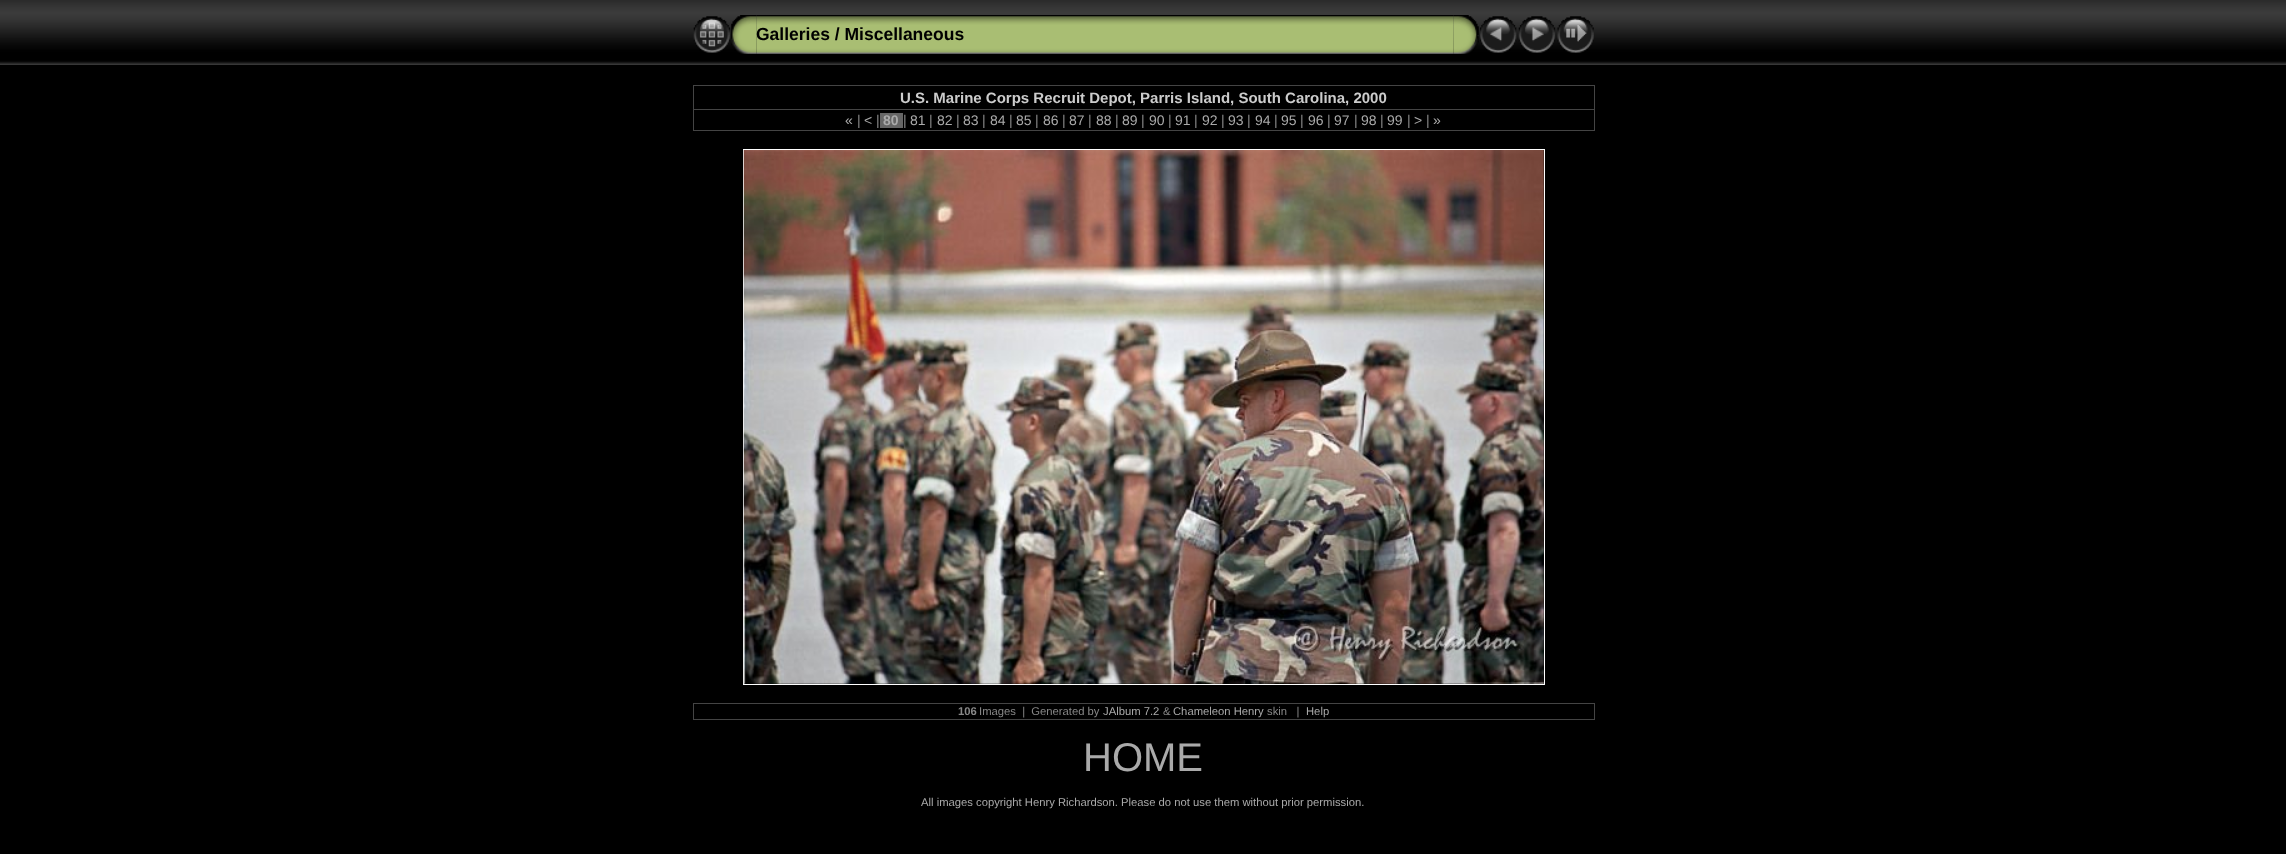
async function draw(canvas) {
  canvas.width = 2286;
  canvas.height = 854;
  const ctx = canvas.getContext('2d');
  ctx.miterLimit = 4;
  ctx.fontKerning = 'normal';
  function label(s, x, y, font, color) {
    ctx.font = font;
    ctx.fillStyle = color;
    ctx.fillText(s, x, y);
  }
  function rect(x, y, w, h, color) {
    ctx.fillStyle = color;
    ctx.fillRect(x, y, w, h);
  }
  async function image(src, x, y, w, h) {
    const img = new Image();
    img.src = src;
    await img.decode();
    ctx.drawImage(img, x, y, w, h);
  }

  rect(0, 0, 2286, 854, '#000');
  await image('assets/img1.png', 0, 0, 2286, 65);
  await image('assets/img2.png', 693, 16, 38, 37);
  await image('assets/img4.png', 756, 15, 698, 39);
  await image('assets/img3.png', 731, 15, 26, 39);
  label('Galleries / Miscellaneous', 756, 40, 'bold 17.5px Liberation Sans', '#000');
  await image('assets/img5.png', 1453, 15, 26, 39);
  await image('assets/img6.png', 1480, 16, 37, 37);
  await image('assets/img7.png', 1518, 16, 38, 37);
  await image('assets/img8.png', 1557, 16, 37, 37);
  rect(693, 85, 902, 1, '#444');
  rect(1594, 85, 1, 46, '#444');
  rect(693, 130, 902, 1, '#444');
  rect(693, 85, 1, 46, '#444');
  label('U.S. Marine Corps Recruit Depot, Parris Island, South Carolina, 2000', 900, 103, 'bold 15px Liberation Sans', '#ccc');
  rect(693, 109, 902, 1, '#444');
  label('«', 845, 125, '14px Liberation Sans', '#aaa');
  label('|', 857, 125, '14px Liberation Sans', '#888');
  label('<', 864, 125, '14px Liberation Sans', '#aaa');
  label('|', 876, 125, '14px Liberation Sans', '#888');
  rect(880, 113, 23, 15, '#666');
  label('80', 883, 125, 'bold 14px Liberation Sans', '#aaa');
  label('|', 903, 125, '14px Liberation Sans', '#888');
  label('81', 910, 125, '14px Liberation Sans', '#aaa');
  label('|', 929, 125, '14px Liberation Sans', '#888');
  label('82', 937, 125, '14px Liberation Sans', '#aaa');
  label('|', 956, 125, '14px Liberation Sans', '#888');
  label('83', 963, 125, '14px Liberation Sans', '#aaa');
  label('|', 982, 125, '14px Liberation Sans', '#888');
  label('84', 990, 125, '14px Liberation Sans', '#aaa');
  label('|', 1009, 125, '14px Liberation Sans', '#888');
  label('85', 1016, 125, '14px Liberation Sans', '#aaa');
  label('|', 1035, 125, '14px Liberation Sans', '#888');
  label('86', 1043, 125, '14px Liberation Sans', '#aaa');
  label('|', 1062, 125, '14px Liberation Sans', '#888');
  label('87', 1069, 125, '14px Liberation Sans', '#aaa');
  label('|', 1088, 125, '14px Liberation Sans', '#888');
  label('88', 1096, 125, '14px Liberation Sans', '#aaa');
  label('|', 1115, 125, '14px Liberation Sans', '#888');
  label('89', 1122, 125, '14px Liberation Sans', '#aaa');
  label('|', 1141, 125, '14px Liberation Sans', '#888');
  label('90', 1149, 125, '14px Liberation Sans', '#aaa');
  label('|', 1168, 125, '14px Liberation Sans', '#888');
  label('91', 1175, 125, '14px Liberation Sans', '#aaa');
  label('|', 1194, 125, '14px Liberation Sans', '#888');
  label('92', 1202, 125, '14px Liberation Sans', '#aaa');
  label('|', 1221, 125, '14px Liberation Sans', '#888');
  label('93', 1228, 125, '14px Liberation Sans', '#aaa');
  label('|', 1247, 125, '14px Liberation Sans', '#888');
  label('94', 1255, 125, '14px Liberation Sans', '#aaa');
  label('|', 1274, 125, '14px Liberation Sans', '#888');
  label('95', 1281, 125, '14px Liberation Sans', '#aaa');
  label('|', 1300, 125, '14px Liberation Sans', '#888');
  label('96', 1308, 125, '14px Liberation Sans', '#aaa');
  label('|', 1327, 125, '14px Liberation Sans', '#888');
  label('97', 1334, 125, '14px Liberation Sans', '#aaa');
  label('|', 1354, 125, '14px Liberation Sans', '#888');
  label('98', 1361, 125, '14px Liberation Sans', '#aaa');
  label('|', 1380, 125, '14px Liberation Sans', '#888');
  label('99', 1387, 125, '14px Liberation Sans', '#aaa');
  label('|', 1407, 125, '14px Liberation Sans', '#888');
  label('>', 1414, 125, '14px Liberation Sans', '#aaa');
  label('|', 1426, 125, '14px Liberation Sans', '#888');
  label('»', 1433, 125, '14px Liberation Sans', '#aaa');
  ctx.strokeStyle = '#fff';
  ctx.strokeRect(743.5, 149.5, 801, 535);
  await image('assets/img9.png', 743, 150, 801, 534);
  rect(693, 703, 902, 1, '#444');
  rect(1594, 703, 1, 17, '#444');
  rect(693, 719, 902, 1, '#444');
  rect(693, 703, 1, 17, '#444');
  label('106', 958, 715, 'bold 11.25px Liberation Sans', '#888');
  label('Images  |  Generated by', 979, 715, '11.25px Liberation Sans', '#888');
  label('JAlbum 7.2', 1103, 715, '11.25px Liberation Sans', '#aaa');
  label('&', 1163, 715, '11.25px Liberation Sans', '#888');
  label('Chameleon Henry', 1173, 715, '11.25px Liberation Sans', '#aaa');
  label('skin   |', 1267, 715, '11.25px Liberation Sans', '#888');
  label('Help', 1306, 715, '11.25px Liberation Sans', '#aaa');
  label('HOME', 1083, 771, '40px Liberation Sans', '#aaa');
  label('All images copyright Henry Richardson. Please do not use them without prior permission.', 921, 806, '11.25px Liberation Sans', '#aaa');
}

draw(document.querySelector('canvas'));
